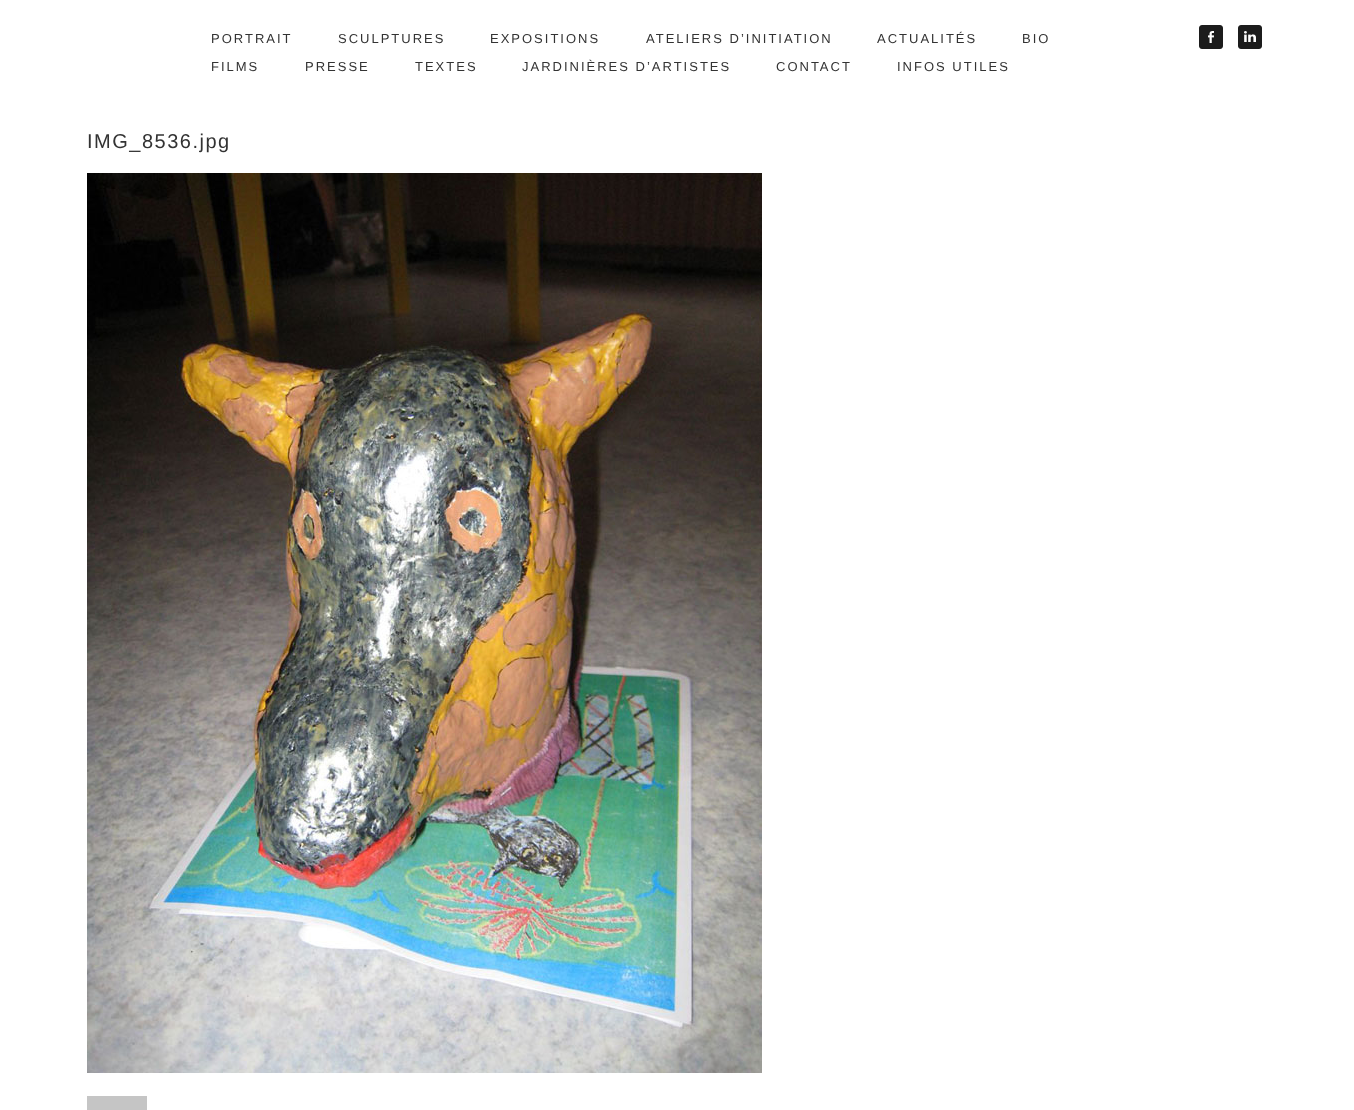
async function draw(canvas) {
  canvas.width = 1354;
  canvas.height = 1110;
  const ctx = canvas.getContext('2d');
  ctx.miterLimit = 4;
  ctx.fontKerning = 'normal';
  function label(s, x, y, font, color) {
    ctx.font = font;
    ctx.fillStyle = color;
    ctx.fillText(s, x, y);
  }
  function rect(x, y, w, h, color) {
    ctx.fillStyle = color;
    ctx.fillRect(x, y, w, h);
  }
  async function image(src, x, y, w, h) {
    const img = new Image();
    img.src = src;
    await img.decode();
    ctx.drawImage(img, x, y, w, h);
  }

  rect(0, 0, 1354, 1110, '#fff');
  ctx.letterSpacing = '2px';
  label('PORTRAIT', 211, 43, '13px Liberation Sans', '#333');
  label('SCULPTURES', 338, 43, '13px Liberation Sans', '#333');
  label('EXPOSITIONS', 490, 43, '13px Liberation Sans', '#333');
  label('ATELIERS D’INITIATION', 646, 43, '13px Liberation Sans', '#333');
  label('ACTUALITÉS', 877, 43, '13px Liberation Sans', '#333');
  label('BIO', 1022, 43, '13px Liberation Sans', '#333');
  label('FILMS', 211, 71, '13px Liberation Sans', '#333');
  label('PRESSE', 305, 71, '13px Liberation Sans', '#333');
  label('TEXTES', 415, 71, '13px Liberation Sans', '#333');
  label('JARDINIÈRES D’ARTISTES', 522, 71, '13px Liberation Sans', '#333');
  label('CONTACT', 776, 71, '13px Liberation Sans', '#333');
  label('INFOS UTILES', 897, 71, '13px Liberation Sans', '#333');
  await image('assets/img1.png', 1199, 25, 24, 24);
  await image('assets/img2.png', 1238, 25, 24, 24);
  ctx.letterSpacing = '1.5px';
  label('IMG_8536.jpg', 87, 148, '20px Liberation Sans', '#333');
  await image('assets/img3.png', 87, 173, 675, 900);
  rect(87, 1096, 60, 14, '#c5c5c5');
}

draw(document.querySelector('canvas'));
